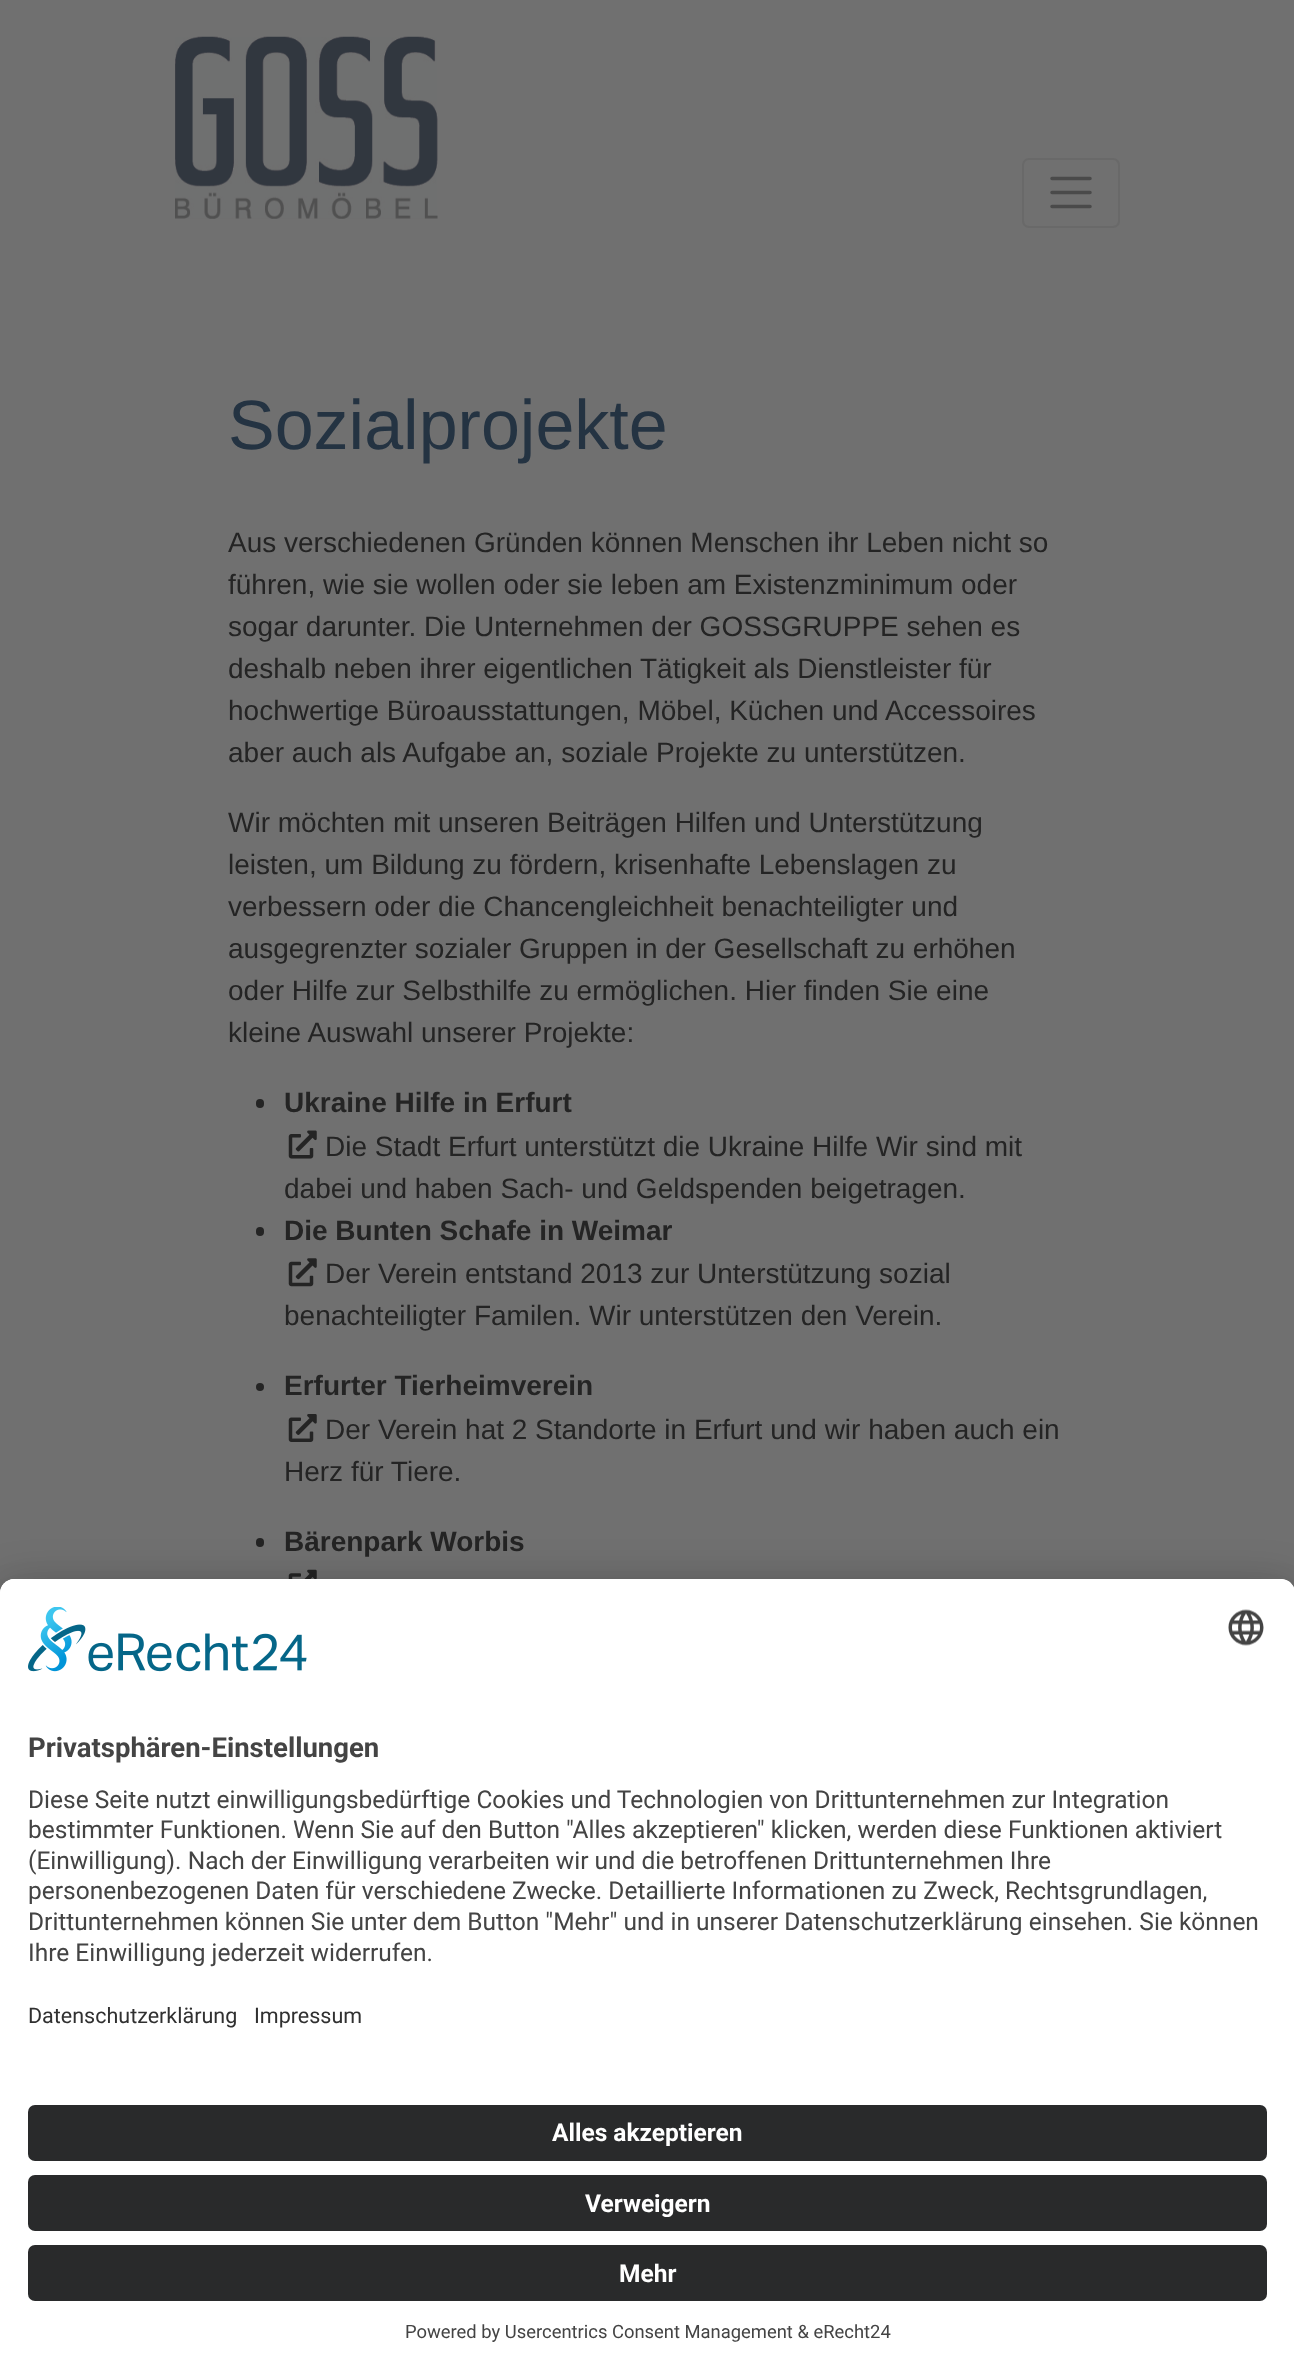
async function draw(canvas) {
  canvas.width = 1294;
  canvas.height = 2370;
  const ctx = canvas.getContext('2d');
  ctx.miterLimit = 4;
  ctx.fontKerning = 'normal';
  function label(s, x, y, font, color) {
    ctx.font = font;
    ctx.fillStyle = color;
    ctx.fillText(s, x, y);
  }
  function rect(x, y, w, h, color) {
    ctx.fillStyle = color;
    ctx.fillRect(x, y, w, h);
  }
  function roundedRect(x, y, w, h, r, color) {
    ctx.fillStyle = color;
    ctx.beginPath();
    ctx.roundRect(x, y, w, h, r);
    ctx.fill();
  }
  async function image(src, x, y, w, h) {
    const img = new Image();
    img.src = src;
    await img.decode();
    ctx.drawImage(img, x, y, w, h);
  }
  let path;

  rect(0, 0, 1294, 2370, '#707070');
  await image('assets/img1.png', 175, 36, 263, 183);
  ctx.beginPath();
  ctx.roundRect(1023, 159, 96, 68, 6);
  ctx.strokeStyle = '#696969';
  ctx.lineWidth = 2;
  ctx.stroke();
  path = new Path2D('M1052 178.5H1090M1052 192.5H1090M1052 206.5H1090');
  ctx.strokeStyle = '#4a4a4a';
  ctx.lineWidth = 3.5;
  ctx.lineCap = 'round';
  ctx.stroke(path);
  label('Sozialprojekte', 228, 449, '70px Liberation Sans', '#243342');
  label('Aus verschiedenen Gründen können Menschen ihr Leben nicht so', 228, 552, '28px Liberation Sans', '#242424');
  label('führen, wie sie wollen oder sie leben am Existenzminimum oder', 228, 594, '28px Liberation Sans', '#242424');
  label('sogar darunter. Die Unternehmen der GOSSGRUPPE sehen es', 228, 636, '28px Liberation Sans', '#242424');
  label('deshalb neben ihrer eigentlichen Tätigkeit als Dienstleister für', 228, 678, '28px Liberation Sans', '#242424');
  label('hochwertige Büroausstattungen, Möbel, Küchen und Accessoires', 228, 720, '28px Liberation Sans', '#242424');
  label('aber auch als Aufgabe an, soziale Projekte zu unterstützen.', 228, 762, '28px Liberation Sans', '#242424');
  label('Wir möchten mit unseren Beiträgen Hilfen und Unterstützung', 228, 832, '28px Liberation Sans', '#242424');
  label('leisten, um Bildung zu fördern, krisenhafte Lebenslagen zu', 228, 874, '28px Liberation Sans', '#242424');
  label('verbessern oder die Chancengleichheit benachteiligter und', 228, 916, '28px Liberation Sans', '#242424');
  label('ausgegrenzter sozialer Gruppen in der Gesellschaft zu erhöhen', 228, 958, '28px Liberation Sans', '#242424');
  label('oder Hilfe zur Selbsthilfe zu ermöglichen. Hier finden Sie eine', 228, 1000, '28px Liberation Sans', '#242424');
  label('kleine Auswahl unserer Projekte:', 228, 1042, '28px Liberation Sans', '#242424');
  roundedRect(256, 1099, 8, 9, 4, '#242424');
  label('Ukraine Hilfe in Erfurt', 284, 1112, 'bold 28px Liberation Sans', '#242424');
  await image('assets/img2.png', 288, 1130, 29, 29);
  label('Die Stadt Erfurt unterstützt die Ukraine Hilfe Wir sind mit', 325, 1156, '28px Liberation Sans', '#242424');
  label('dabei und haben Sach- und Geldspenden beigetragen.', 284, 1198, '28px Liberation Sans', '#242424');
  roundedRect(256, 1227, 8, 9, 4, '#242424');
  label('Die Bunten Schafe in Weimar', 284, 1240, 'bold 28px Liberation Sans', '#242424');
  await image('assets/img3.png', 288, 1258, 29, 29);
  label('Der Verein entstand 2013 zur Unterstützung sozial', 325, 1283, '28px Liberation Sans', '#242424');
  label('benachteiligter Familen. Wir unterstützen den Verein.', 284, 1325, '28px Liberation Sans', '#242424');
  ctx.beginPath();
  ctx.arc(260, 1387, 4, 0, 2 * Math.PI);
  ctx.fill();
  label('Erfurter Tierheimverein', 284, 1395, 'bold 28px Liberation Sans', '#242424');
  await image('assets/img4.png', 288, 1414, 29, 28);
  label('Der Verein hat 2 Standorte in Erfurt und wir haben auch ein', 325, 1439, '28px Liberation Sans', '#242424');
  label('Herz für Tiere.', 284, 1481, '28px Liberation Sans', '#242424');
  roundedRect(256, 1538, 8, 9, 4, '#242424');
  label('Bärenpark Worbis', 284, 1551, 'bold 28px Liberation Sans', '#242424');
  await image('assets/img5.png', 288, 1569, 29, 10);
  ctx.fillStyle = '#0000004d';
  ctx.filter = 'blur(24.5px)';
  ctx.beginPath();
  ctx.roundRect(0, 1614, 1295, 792, 14);
  ctx.fill();
  ctx.filter = 'none';
  ctx.fillStyle = '#00000038';
  ctx.filter = 'blur(23px)';
  ctx.beginPath();
  ctx.roundRect(0, 1587, 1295, 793, 14);
  ctx.fill();
  ctx.filter = 'none';
  ctx.fillStyle = '#fff';
  path = new Path2D('M14 1579H1281C1288.5 1579 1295 1585.5 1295 1593V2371H0V1593C0 1585.5 6.5 1579 14 1579Z');
  ctx.fill(path);
  path = new Path2D('M14 1579H1281C1288.5 1579 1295 1585.5 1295 1593V2084H0V1593C0 1585.5 6.5 1579 14 1579Z');
  ctx.fill(path);
  await image('assets/img6.png', 28, 1607, 279, 65);
  await image('assets/img7.png', 1228, 1609, 36, 37);
  label('Privatsphären-Einstellungen', 28, 1757, 'bold 27.5px Roboto', '#444');
  label('Diese Seite nutzt einwilligungsbedürftige Cookies und Technologien von Drittunternehmen zur Integration', 28, 1808, '24.5px Roboto', '#444');
  label('bestimmter Funktionen. Wenn Sie auf den Button "Alles akzeptieren" klicken, werden diese Funktionen aktiviert', 28, 1838, '24.5px Roboto', '#444');
  label('(Einwilligung). Nach der Einwilligung verarbeiten wir und die betroffenen Drittunternehmen Ihre', 28, 1869, '24.5px Roboto', '#444');
  label('personenbezogenen Daten für verschiedene Zwecke. Detaillierte Informationen zu Zweck, Rechtsgrundlagen,', 28, 1899, '24.5px Roboto', '#444');
  label('Drittunternehmen können Sie unter dem Button "Mehr" und in unserer Datenschutzerklärung einsehen. Sie können', 28, 1930, '24.5px Roboto', '#444');
  label('Ihre Einwilligung jederzeit widerrufen.', 28, 1961, '24.5px Roboto', '#444');
  label('Datenschutzerklärung', 28, 2023, '21.5px Roboto', '#303030');
  label('Impressum', 254, 2023, '21.5px Roboto', '#303030');
  roundedRect(28, 2105, 1239, 56, 7, '#292a2b');
  label('Alles akzeptieren', 552, 2141, 'bold 24.5px Roboto', '#fff');
  roundedRect(28, 2175, 1239, 56, 7, '#292a2b');
  label('Verweigern', 585, 2212, 'bold 24.5px Roboto', '#fff');
  roundedRect(28, 2245, 1239, 56, 7, '#292a2b');
  label('Mehr', 619, 2282, 'bold 24.5px Roboto', '#fff');
  label('Powered by Usercentrics Consent Management & eRecht24', 405, 2338, '18.4px Roboto', '#444');
}

draw(document.querySelector('canvas'));
